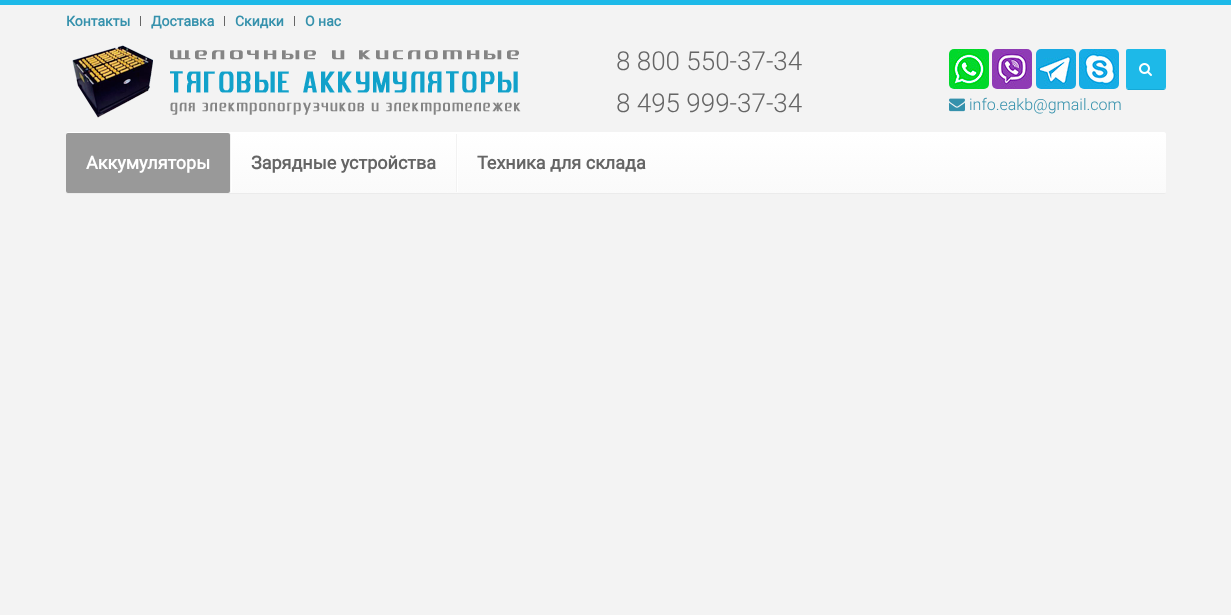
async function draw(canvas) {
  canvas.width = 1231;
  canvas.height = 615;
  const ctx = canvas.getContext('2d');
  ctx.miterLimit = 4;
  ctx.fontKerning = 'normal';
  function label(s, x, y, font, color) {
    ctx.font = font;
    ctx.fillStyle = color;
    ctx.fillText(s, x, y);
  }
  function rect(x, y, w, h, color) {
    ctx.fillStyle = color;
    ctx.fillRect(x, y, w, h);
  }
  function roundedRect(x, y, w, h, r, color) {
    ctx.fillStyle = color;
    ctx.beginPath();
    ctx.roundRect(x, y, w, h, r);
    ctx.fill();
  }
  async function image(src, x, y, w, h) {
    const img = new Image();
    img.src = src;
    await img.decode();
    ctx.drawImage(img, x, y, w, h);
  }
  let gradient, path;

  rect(0, 0, 1231, 615, '#f3f3f3');
  rect(0, 0, 1231, 5, '#1db9e8');
  label('Контакты', 66, 26, 'bold 14px Roboto', '#3591ac');
  rect(140, 16, 1, 10, '#666');
  label('Доставка', 151, 26, 'bold 14px Roboto', '#3591ac');
  rect(224, 16, 1, 10, '#666');
  label('Cкидки', 235, 26, 'bold 14px Roboto', '#3591ac');
  rect(294, 16, 1, 10, '#666');
  label('О нас', 305, 26, 'bold 14px Roboto', '#3591ac');
  await image('assets/img1.png', 72, 45, 449, 73);
  label('8 800 550-37-34', 616, 70, '300 26px Roboto', '#656565');
  label('8 495 999-37-34', 616, 112, '300 26px Roboto', '#656565');
  ctx.fillStyle = '#16a9d6';
  path = new Path2D('M1126 87C1126 91 1130 90 1134 90H1158C1162 90 1166 91 1166 87C1166 88 1165 89 1164 89H1128C1127 89 1126 88 1126 87Z');
  ctx.fill(path);
  roundedRect(1126, 49, 40, 40, 2, '#1db9e8');
  await image('assets/img2.png', 1139, 63, 13, 13);
  await image('assets/img3.png', 949, 49, 40, 40);
  await image('assets/img4.png', 992, 49, 40, 40);
  await image('assets/img5.png', 1036, 49, 40, 40);
  await image('assets/img6.png', 1079, 49, 40, 40);
  await image('assets/img7.png', 949, 98, 16, 14);
  label('info.eakb@gmail.com', 969, 110, '300 16px Roboto', '#3591ac');
  ctx.save();
  ctx.beginPath();
  ctx.roundRect(66, 132, 1100, 62, 2);
  ctx.clip();
  gradient = ctx.createLinearGradient(616, 133, 616, 193);
  gradient.addColorStop(0, '#fff');
  gradient.addColorStop(1, '#fafafa');
  ctx.fillStyle = gradient;
  ctx.fillRect(66, 133, 1100, 60);
  ctx.restore();
  ctx.fillStyle = '#fff';
  path = new Path2D('M68 132C67 132 66 133 66 134C66 133 67 133 68 133H1164C1165 133 1166 133 1166 134C1166 133 1165 132 1164 132Z');
  ctx.fill(path);
  ctx.fillStyle = '#ebebeb';
  path = new Path2D('M1164 194C1165 194 1166 193 1166 192C1166 193 1165 193 1164 193H68C67 193 66 193 66 192C66 193 67 194 68 194Z');
  ctx.fill(path);
  roundedRect(66, 133, 164, 60, 2, '#999');
  label('Аккумуляторы', 86, 169, 'bold 18px Roboto', '#fff');
  path = new Path2D('M232 133L231 134V182C231 182 229 193 233 193C232 193 232 192 232 191V135C232 134 232 133 233 133Z');
  ctx.fill(path);
  rect(230, 134, 1, 58, '#f2f2f2');
  label('Зарядные устройства', 251, 169, 'bold 18px Roboto', '#656565');
  ctx.fillStyle = '#fff';
  path = new Path2D('M458 133L457 134V182C457 182 455 193 459 193C458 193 458 192 458 191V135C458 134 458 133 459 133Z');
  ctx.fill(path);
  rect(456, 134, 1, 58, '#f2f2f2');
  label('Техника для склада', 477, 169, 'bold 18px Roboto', '#656565');
}

draw(document.querySelector('canvas'));
